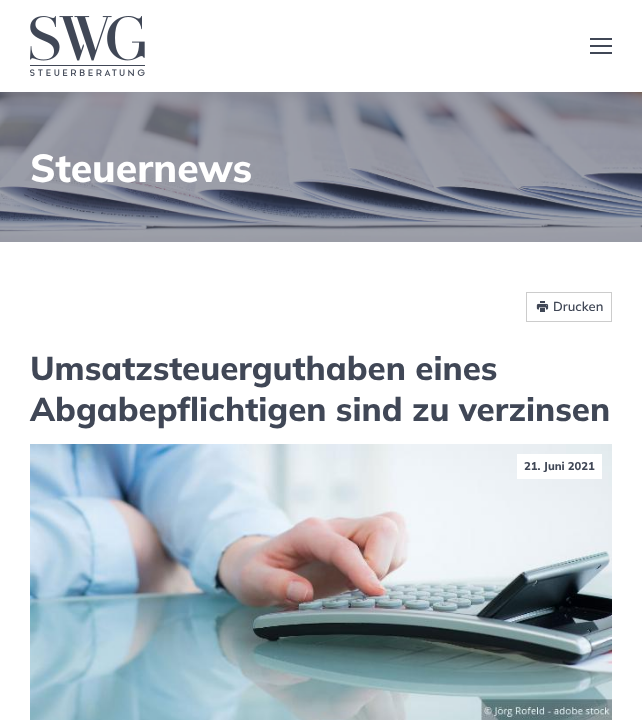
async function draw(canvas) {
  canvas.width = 642;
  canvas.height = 720;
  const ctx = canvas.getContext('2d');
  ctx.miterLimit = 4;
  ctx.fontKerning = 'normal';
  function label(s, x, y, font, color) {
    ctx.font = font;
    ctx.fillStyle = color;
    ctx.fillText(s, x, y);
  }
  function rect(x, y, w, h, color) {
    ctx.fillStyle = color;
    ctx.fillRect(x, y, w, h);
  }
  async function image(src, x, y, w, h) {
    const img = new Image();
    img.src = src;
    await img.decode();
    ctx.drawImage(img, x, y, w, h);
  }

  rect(0, 0, 642, 720, '#fff');
  await image('assets/img1.png', 30, 16, 115, 60);
  rect(590, 38, 22, 2, '#404756');
  rect(590, 45, 22, 2, '#404756');
  rect(590, 52, 22, 2, '#404756');
  rect(0, 92, 642, 150, '#404756');
  await image('assets/img2.png', 0, 92, 642, 150);
  label('Steuernews', 30, 182, '800 39px Mulish', '#fff');
  ctx.strokeStyle = '#ccc';
  ctx.strokeRect(526.5, 292.5, 85, 29);
  await image('assets/img3.png', 536, 301, 13, 11);
  label('Drucken', 553, 311, '600 13px Mulish', '#404756');
  label('Umsatzsteuerguthaben eines', 30, 380, '800 33px Mulish', '#404756');
  label('Abgabepflichtigen sind zu verzinsen', 30, 421, '800 33px Mulish', '#404756');
  await image('assets/img4.png', 30, 444, 582, 276);
  rect(517, 454, 85, 25, '#fff');
  label('21. Juni 2021', 524, 470, '800 11.25px Mulish', '#404756');
}

draw(document.querySelector('canvas'));
